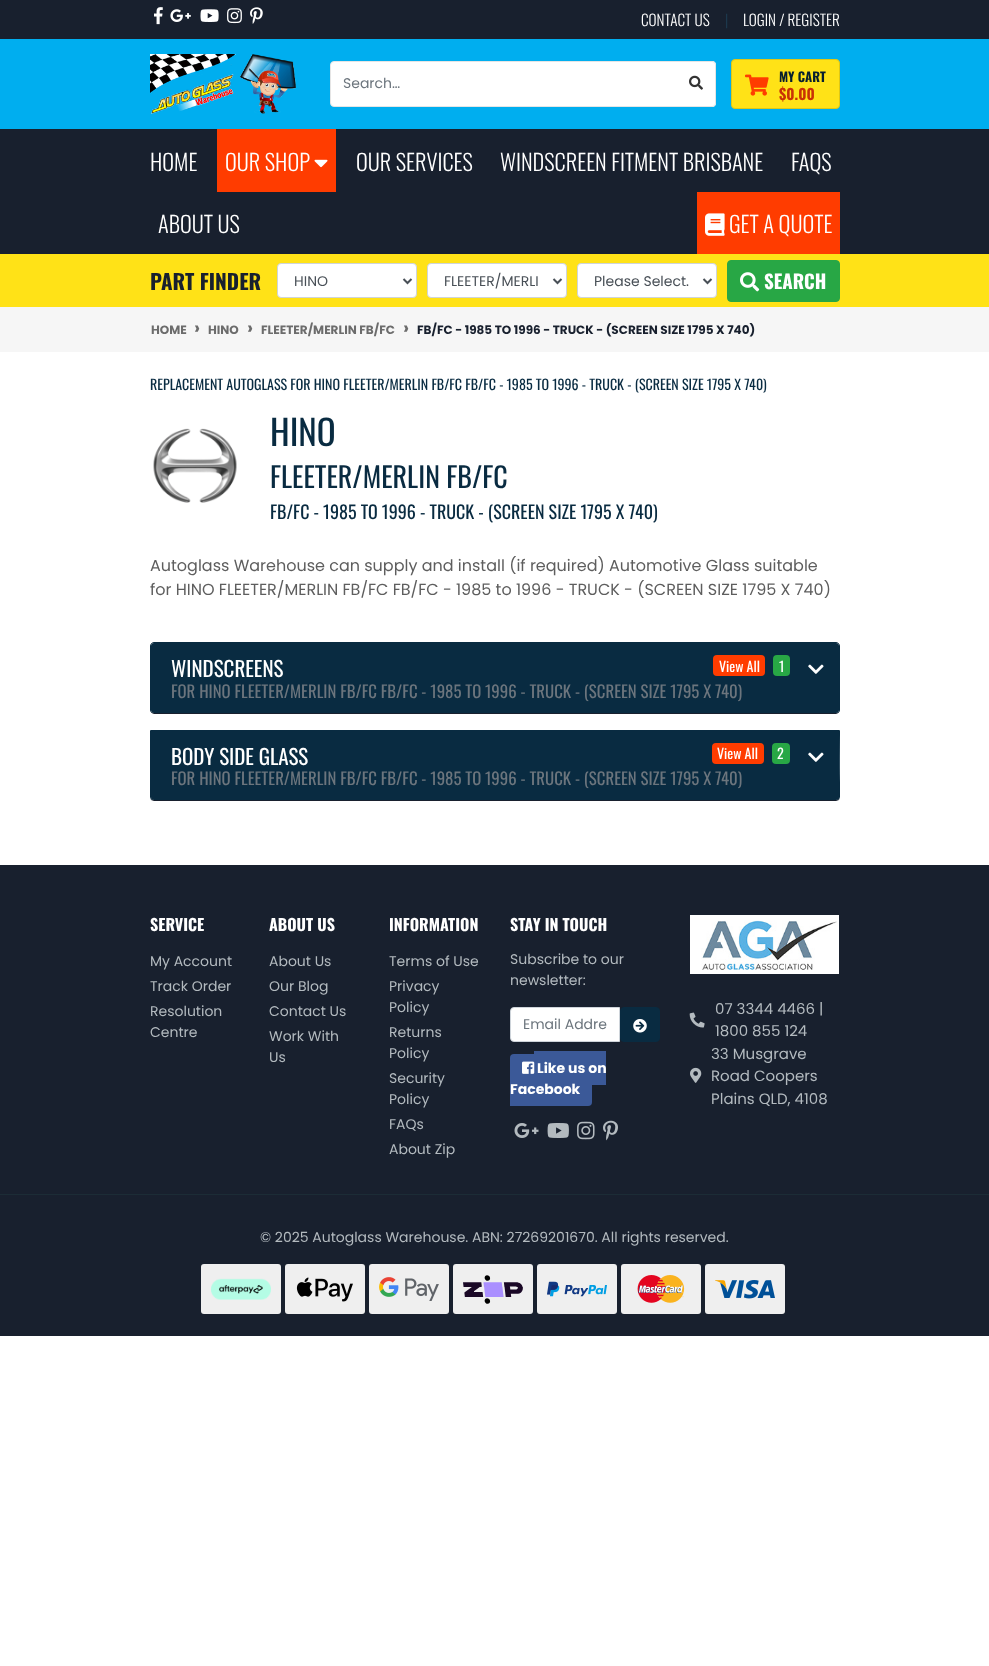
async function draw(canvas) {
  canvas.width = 989;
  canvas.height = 1666;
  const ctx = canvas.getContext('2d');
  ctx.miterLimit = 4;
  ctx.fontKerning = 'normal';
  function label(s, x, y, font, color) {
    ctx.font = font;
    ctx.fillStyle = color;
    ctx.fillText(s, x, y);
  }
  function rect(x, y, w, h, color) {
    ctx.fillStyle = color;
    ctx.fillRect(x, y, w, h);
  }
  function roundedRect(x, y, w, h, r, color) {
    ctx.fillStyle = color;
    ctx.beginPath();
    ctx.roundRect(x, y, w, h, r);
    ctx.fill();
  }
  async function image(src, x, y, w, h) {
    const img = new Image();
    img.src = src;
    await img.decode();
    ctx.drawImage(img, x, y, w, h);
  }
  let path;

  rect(0, 0, 989, 1666, '#fff');
  rect(0, 0, 989, 39, '#18202e');
  await image('assets/img1.png', 154, 7, 9, 18);
  await image('assets/img2.png', 170, 9, 21, 13);
  await image('assets/img3.png', 200, 9, 19, 13);
  await image('assets/img4.png', 227, 8, 15, 16);
  await image('assets/img5.png', 250, 7, 13, 17);
  label('CONTACT US', 641, 26, '300 15.25px Oswald', '#fff');
  label('|', 725, 26, '300 15.25px Oswald', '#1e3e53');
  label('LOGIN / REGISTER', 743, 26, '300 15.25px Oswald', '#fff');
  rect(0, 39, 989, 90, '#00aeef');
  await image('assets/img6.png', 150, 54, 146, 60);
  ctx.fillStyle = '#fff';
  ctx.beginPath();
  ctx.roundRect(330.5, 61.5, 347, 45, [3.5, 0, 0, 3.5]);
  ctx.fill();
  ctx.strokeStyle = '#e5e5e5';
  ctx.stroke();
  label('Search…', 343, 88, '14px Poppins', '#6c757d');
  ctx.fillStyle = '#fff';
  ctx.beginPath();
  ctx.roundRect(677, 61, 39, 46, [0, 4, 4, 0]);
  ctx.fill();
  ctx.fillStyle = '#e5e5e5';
  path = new Path2D('M677 61H712C714 61 716 63 716 65V103C716 105 714 107 712 107H677ZM677 62H712C714 62 715 63 715 65V103C715 105 714 106 712 106H677Z');
  ctx.fill(path, 'evenodd');
  await image('assets/img7.png', 689, 75, 14, 15);
  ctx.fillStyle = '#ffe217';
  ctx.beginPath();
  ctx.roundRect(731.5, 59.5, 108, 49, 3.5);
  ctx.fill();
  ctx.strokeStyle = '#dfc714';
  ctx.stroke();
  await image('assets/img8.png', 745, 74, 24, 22);
  label('MY CART', 779, 82, 'bold 13px Oswald', '#071f2f');
  label('$0.00', 779, 100, 'bold 15px Oswald', '#c93205');
  rect(0, 129, 989, 125, '#18202e');
  label('HOME', 150, 171, '300 22.4px Oswald', '#fff');
  rect(217, 129, 119, 63, '#ff3c00');
  label('OUR SHOP', 225, 171, '300 22.4px Oswald', '#fff');
  await image('assets/img9.png', 314, 159, 14, 9);
  label('OUR SERVICES', 356, 171, '300 22.4px Oswald', '#fff');
  label('WINDSCREEN FITMENT BRISBANE', 500, 171, '300 22.4px Oswald', '#fff');
  label('FAQS', 791, 171, '300 22.4px Oswald', '#fff');
  label('ABOUT US', 158, 233, '300 22.4px Oswald', '#fff');
  rect(697, 192, 143, 62, '#ff3c00');
  await image('assets/img10.png', 705, 213, 20, 23);
  label('GET A QUOTE', 729, 233, '300 22.4px Oswald', '#fff');
  rect(0, 254, 989, 53, '#ffe217');
  label('PART FINDER', 150, 290, 'bold 21px Oswald', '#18202e');
  ctx.fillStyle = '#fff';
  ctx.beginPath();
  ctx.roundRect(277.5, 263.5, 139, 34, 3.5);
  ctx.fill();
  ctx.strokeStyle = '#ced4da';
  ctx.stroke();
  path = new Path2D('M403.5 279L407.5 283L411.5 279');
  ctx.strokeStyle = '#495057';
  ctx.lineWidth = 2;
  ctx.stroke(path);
  label('HINO', 294, 286, '14px Poppins', '#495057');
  ctx.fillStyle = '#fff';
  ctx.beginPath();
  ctx.roundRect(427.5, 263.5, 139, 34, 3.5);
  ctx.fill();
  ctx.strokeStyle = '#ced4da';
  ctx.lineWidth = 1;
  ctx.stroke();
  path = new Path2D('M553.5 279L557.5 283L561.5 279');
  ctx.strokeStyle = '#495057';
  ctx.lineWidth = 2;
  ctx.stroke(path);
  label('FLEETER/MERLI', 444, 286, '14px Poppins', '#495057');
  ctx.fillStyle = '#fff';
  ctx.beginPath();
  ctx.roundRect(577.5, 263.5, 139, 34, 3.5);
  ctx.fill();
  ctx.strokeStyle = '#ced4da';
  ctx.lineWidth = 1;
  ctx.stroke();
  path = new Path2D('M703.5 279L707.5 283L711.5 279');
  ctx.strokeStyle = '#495057';
  ctx.lineWidth = 2;
  ctx.stroke(path);
  label('Please Select.', 594, 286, '14px Poppins', '#495057');
  ctx.fillStyle = '#28a745';
  ctx.beginPath();
  ctx.roundRect(727.5, 260.5, 112, 41, 3.5);
  ctx.fill();
  ctx.strokeStyle = '#28a745';
  ctx.lineWidth = 1;
  ctx.stroke();
  await image('assets/img11.png', 740, 272, 20, 20);
  label('SEARCH', 764, 289, 'bold 19px Oswald', '#fff');
  rect(0, 307, 989, 45, '#f6f6f6');
  label('HOME', 151, 334, 'bold 12px Poppins', '#6c6c6c');
  label('›', 194, 334, 'bold 18px Poppins', '#6c6c6c');
  label('HINO', 208, 334, 'bold 12px Poppins', '#6c6c6c');
  label('›', 247, 334, 'bold 18px Poppins', '#6c6c6c');
  label('FLEETER/MERLIN FB/FC', 261, 334, 'bold 12px Poppins', '#6c6c6c');
  label('›', 403, 334, 'bold 18px Poppins', '#6c6c6c');
  label('FB/FC - 1985 TO 1996 - TRUCK - (SCREEN SIZE 1795 X 740)', 417, 334, 'bold 12px Poppins', '#18202e');
  label('REPLACEMENT AUTOGLASS FOR HINO FLEETER/MERLIN FB/FC FB/FC - 1985 TO 1996 - TRUCK - (SCREEN SIZE 1795 X 740)', 150, 390, '14px Oswald', '#092b41');
  await image('assets/img12.png', 153, 428, 84, 75);
  label('HINO', 270, 446, '35px Oswald', '#092b41');
  label('FLEETER/MERLIN FB/FC', 270, 488, '28px Oswald', '#092b41');
  label('FB/FC - 1985 TO 1996 - TRUCK - (SCREEN SIZE 1795 X 740)', 270, 519, '18px Oswald', '#092b41');
  label('Autoglass Warehouse can supply and install (if required) Automotive Glass suitable', 150, 571, '16px Poppins', '#5e5e5e');
  label('for HINO FLEETER/MERLIN FB/FC FB/FC - 1985 to 1996 - TRUCK - (SCREEN SIZE 1795 X 740)', 150, 595, '16px Poppins', '#5e5e5e');
  path = new Path2D('M838.5 712.5L836 713.5H154L151.5 712.5');
  ctx.strokeStyle = '#18202e';
  ctx.stroke(path);
  path = new Path2D('M151.5 712.5C151 712 150.5 711 150.5 710V646C150.5 645 151 644 151.5 643.5C152 643 153 642.5 154 642.5H836C837 642.5 838 643 838.5 643.5C839 644 839.5 645 839.5 646V710C839.5 711 839 712 838.5 712.5');
  ctx.strokeStyle = '#092b41';
  ctx.stroke(path);
  roundedRect(151, 643, 688, 70, 3, '#092b41');
  label('WINDSCREENS', 171, 677, '21px Oswald', '#fff');
  label('FOR HINO FLEETER/MERLIN FB/FC FB/FC - 1985 TO 1996 - TRUCK - (SCREEN SIZE 1795 X 740)', 171, 698, '16.8px Oswald', '#6c757d');
  roundedRect(713, 655, 52, 21, 4, '#ff3c00');
  label('View All', 719, 672, '14px Oswald', '#fff');
  roundedRect(773, 655, 17, 21, 4, '#28a745');
  label('1', 779, 672, '14px Oswald', '#fff');
  await image('assets/img13.png', 808, 664, 16, 10);
  ctx.fillStyle = '#092b41';
  path = new Path2D('M150 730L151 731H839L840 730Z');
  ctx.fill(path);
  path = new Path2D('M840 730L839 731C839 738 840 798 838 799L839 800L840 797Z');
  ctx.fill(path);
  ctx.fillStyle = '#18202e';
  path = new Path2D('M154 801H836L839 800L838 799L836 800H154L152 799L151 800Z');
  ctx.fill(path);
  ctx.fillStyle = '#092b41';
  path = new Path2D('M151 731L150 730V797L151 800L152 799L151 797Z');
  ctx.fill(path);
  ctx.beginPath();
  ctx.roundRect(151, 731, 688, 69, [0, 0, 3, 3]);
  ctx.fill();
  label('BODY SIDE GLASS', 171, 765, '21px Oswald', '#fff');
  label('FOR HINO FLEETER/MERLIN FB/FC FB/FC - 1985 TO 1996 - TRUCK - (SCREEN SIZE 1795 X 740)', 171, 785, '16.8px Oswald', '#6c757d');
  roundedRect(712, 743, 52, 21, 4, '#ff3c00');
  label('View All', 717, 759, '14px Oswald', '#fff');
  roundedRect(772, 743, 18, 21, 4, '#28a745');
  label('2', 777, 759, '14px Oswald', '#fff');
  await image('assets/img13.png', 808, 752, 16, 10);
  rect(0, 865, 989, 471, '#18202e');
  label('SERVICE', 150, 931, 'bold 16px Oswald', '#fff');
  label('My Account', 150, 966, '14px Poppins', '#b3babf');
  label('Track Order', 150, 991, '14px Poppins', '#b3babf');
  label('Resolution', 150, 1016, '14px Poppins', '#b3babf');
  label('Centre', 150, 1037, '14px Poppins', '#b3babf');
  label('ABOUT US', 269, 931, 'bold 16px Oswald', '#fff');
  label('About Us', 269, 966, '14px Poppins', '#b3babf');
  label('Our Blog', 269, 991, '14px Poppins', '#b3babf');
  label('Contact Us', 269, 1016, '14px Poppins', '#b3babf');
  label('Work With', 269, 1041, '14px Poppins', '#b3babf');
  label('Us', 269, 1062, '14px Poppins', '#b3babf');
  label('INFORMATION', 389, 931, 'bold 16px Oswald', '#fff');
  label('Terms of Use', 389, 966, '14px Poppins', '#b3babf');
  label('Privacy', 389, 991, '14px Poppins', '#b3babf');
  label('Policy', 389, 1012, '14px Poppins', '#b3babf');
  label('Returns', 389, 1037, '14px Poppins', '#b3babf');
  label('Policy', 389, 1058, '14px Poppins', '#b3babf');
  label('Security', 389, 1083, '14px Poppins', '#b3babf');
  label('Policy', 389, 1104, '14px Poppins', '#b3babf');
  label('FAQs', 389, 1129, '14px Poppins', '#b3babf');
  label('About Zip', 389, 1154, '14px Poppins', '#b3babf');
  label('STAY IN TOUCH', 510, 931, 'bold 16px Oswald', '#fff');
  label('Subscribe to our', 510, 964, '14px Poppins', '#b3babf');
  label('newsletter:', 510, 985, '14px Poppins', '#b3babf');
  ctx.fillStyle = '#fff';
  ctx.beginPath();
  ctx.roundRect(510.5, 1007.5, 109, 34, [3.5, 0, 0, 3.5]);
  ctx.fill();
  ctx.strokeStyle = '#ced4da';
  ctx.stroke();
  label('Email Addre', 523, 1029, '14px Poppins', '#6c757d');
  ctx.fillStyle = '#092b41';
  ctx.beginPath();
  ctx.roundRect(620.5, 1007.5, 39, 34, 3.5);
  ctx.fill();
  ctx.strokeStyle = '#092b41';
  ctx.stroke();
  await image('assets/img14.png', 633, 1019, 14, 14);
  ctx.fillStyle = '#3b5998';
  ctx.beginPath();
  ctx.roundRect(510, 1054, 24, 28, [4, 0, 0, 4]);
  ctx.fill();
  rect(534, 1051, 31, 21, '#3b5998');
  rect(565, 1051, 41, 34, '#3b5998');
  ctx.beginPath();
  ctx.roundRect(510, 1072, 82, 34, [0, 4, 4, 0]);
  ctx.fill();
  await image('assets/img15.png', 522, 1061, 13, 13);
  label('Like us on', 537, 1073, 'bold 14px Poppins', '#fff');
  label('Facebook', 510, 1094, 'bold 14px Poppins', '#fff');
  await image('assets/img16.png', 514, 1123, 25, 15);
  await image('assets/img17.png', 547, 1123, 22, 15);
  await image('assets/img18.png', 577, 1121, 18, 19);
  await image('assets/img19.png', 603, 1120, 15, 21);
  await image('assets/img20.png', 690, 915, 149, 59);
  await image('assets/img21.png', 689, 1012, 16, 16);
  label('07 3344 4466 |', 715, 1014, '15px Poppins', '#b3babf');
  label('1800 855 124', 715, 1036, '15px Poppins', '#b3babf');
  await image('assets/img22.png', 690, 1067, 12, 16);
  label('33 Musgrave', 711, 1059, '15px Poppins', '#b3babf');
  label('Road Coopers', 711, 1081, '15px Poppins', '#b3babf');
  label('Plains QLD, 4108', 711, 1104, '15px Poppins', '#b3babf');
  rect(0, 1194, 989, 1, '#1c2c36');
  label('© 2025 Autoglass Warehouse. ABN: 27269201670. All rights reserved.', 260, 1242, '14px Poppins', '#b3babf');
  roundedRect(201, 1264, 80, 50, 3, '#efefef');
  await image('assets/img23.png', 211, 1278, 60, 22);
  roundedRect(285, 1264, 80, 50, 3, '#efefef');
  await image('assets/img24.png', 296, 1277, 57, 25);
  roundedRect(369, 1264, 80, 50, 3, '#efefef');
  await image('assets/img25.png', 379, 1277, 60, 24);
  roundedRect(453, 1264, 80, 50, 3, '#efefef');
  await image('assets/img26.png', 463, 1275, 60, 29);
  roundedRect(537, 1264, 80, 50, 3, '#efefef');
  await image('assets/img27.png', 547, 1281, 60, 16);
  roundedRect(621, 1264, 80, 50, 3, '#efefef');
  await image('assets/img28.png', 637, 1275, 48, 28);
  roundedRect(705, 1264, 80, 50, 3, '#efefef');
  await image('assets/img29.png', 715, 1280, 60, 19);
}

draw(document.querySelector('canvas'));
